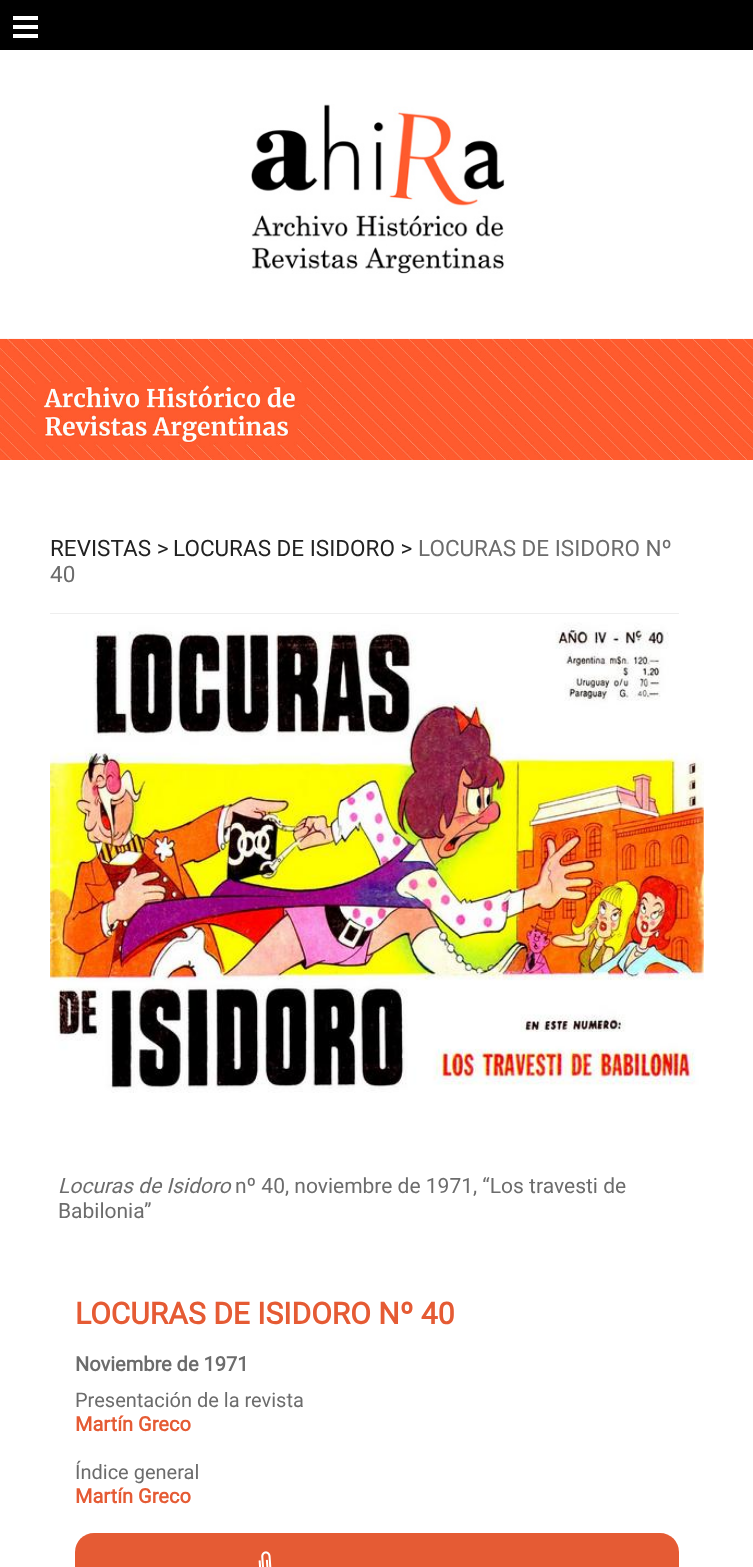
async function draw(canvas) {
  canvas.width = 753;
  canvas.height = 1567;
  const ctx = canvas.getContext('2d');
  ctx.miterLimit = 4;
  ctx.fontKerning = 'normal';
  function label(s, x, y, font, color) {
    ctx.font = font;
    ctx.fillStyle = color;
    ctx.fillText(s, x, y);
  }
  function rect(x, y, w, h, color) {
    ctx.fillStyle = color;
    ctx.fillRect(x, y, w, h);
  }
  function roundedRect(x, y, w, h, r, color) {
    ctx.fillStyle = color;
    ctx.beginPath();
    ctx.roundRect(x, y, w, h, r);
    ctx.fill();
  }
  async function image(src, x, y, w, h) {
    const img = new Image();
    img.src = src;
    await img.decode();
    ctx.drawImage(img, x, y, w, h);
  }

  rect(0, 0, 753, 1567, '#fff');
  rect(0, 0, 753, 50, '#000');
  rect(13, 16, 25, 4, '#fff');
  rect(13, 25, 25, 4, '#fff');
  rect(13, 34, 25, 4, '#fff');
  await image('assets/img1.png', 251, 104, 254, 170);
  await image('assets/img2.png', 0, 338, 753, 122);
  rect(50, 613, 629, 1, '#e9e9e9');
  label('REVISTAS >', 50, 556, '22.5px Roboto', '#222');
  label('LOCURAS DE ISIDORO >', 173, 556, '22.5px Roboto', '#222');
  label('LOCURAS DE ISIDORO Nº', 418, 556, '22.5px Roboto', '#6c6c6c');
  label('40', 50, 582, '22.5px Roboto', '#6c6c6c');
  await image('assets/img3.png', 50, 613, 654, 480);
  label('Locuras de Isidoro', 58, 1193, 'italic 21px Roboto', '#6c6c6c');
  label('nº 40, noviembre de 1971, “Los travesti de', 235, 1193, '21px Roboto', '#6c6c6c');
  label('Babilonia”', 58, 1218, '21px Roboto', '#6c6c6c');
  label('LOCURAS DE ISIDORO Nº 40', 75, 1324, 'bold 30px Roboto', '#e55b34');
  label('Noviembre de 1971', 75, 1371, 'bold 20px Roboto', '#6c6c6c');
  label('Presentación de la revista', 75, 1407, '20px Roboto', '#6c6c6c');
  label('Martín Greco', 75, 1431, 'bold 20px Roboto', '#e55b34');
  label('Índice general', 75, 1479, '20px Roboto', '#6c6c6c');
  label('Martín Greco', 75, 1503, 'bold 20px Roboto', '#e55b34');
  roundedRect(75, 1533, 604, 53, 19, '#e55b34');
  await image('assets/img4.png', 258, 1551, 14, 16);
}

draw(document.querySelector('canvas'));
